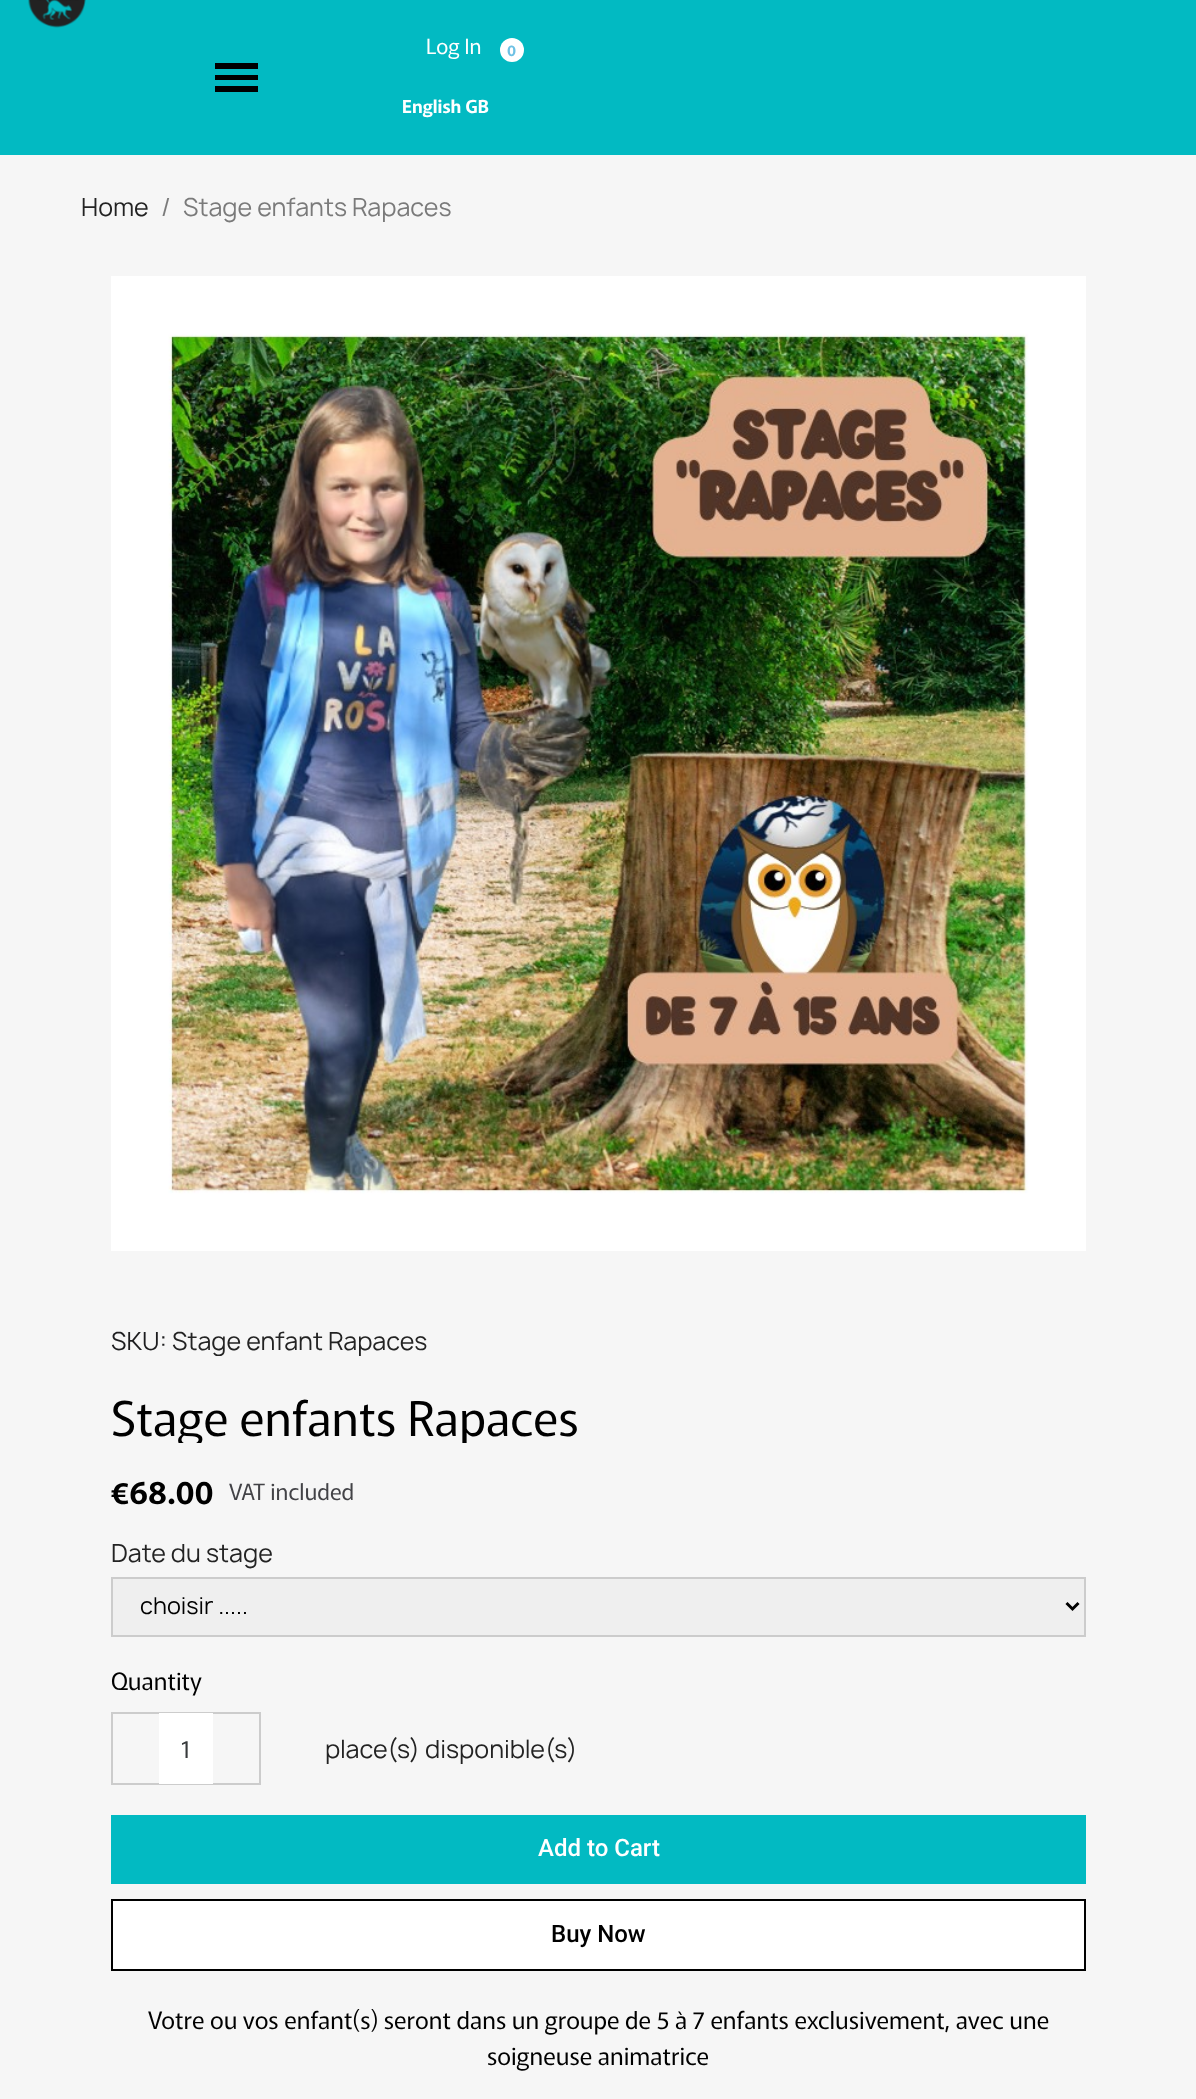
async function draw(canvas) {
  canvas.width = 1196;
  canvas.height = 2099;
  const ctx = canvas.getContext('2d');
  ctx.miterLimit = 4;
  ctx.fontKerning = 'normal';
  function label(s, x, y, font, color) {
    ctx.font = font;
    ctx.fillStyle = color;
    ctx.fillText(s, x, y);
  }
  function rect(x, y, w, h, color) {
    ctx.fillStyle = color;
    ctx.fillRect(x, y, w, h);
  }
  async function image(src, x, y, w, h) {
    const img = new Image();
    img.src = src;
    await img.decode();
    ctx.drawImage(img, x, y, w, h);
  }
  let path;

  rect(0, 0, 1196, 2099, '#f6f6f6');
  rect(0, 0, 1196, 155, '#02bac2');
  await image('assets/img1.png', 28, 0, 58, 28);
  rect(215, 75, 43, 5, '#000');
  rect(215, 63, 43, 6, '#000');
  rect(215, 86, 43, 6, '#000');
  label('Log In', 426, 54, '21px Murecho', '#fff');
  ctx.beginPath();
  ctx.arc(512, 50, 12, 0, 2 * Math.PI);
  ctx.fill();
  label('0', 507, 56, '600 15px Murecho', '#6ec1e4');
  label('English GB', 402, 113, '600 18px Murecho', '#fff');
  label('Home', 81, 216, '24px Manrope', '#232323');
  label('/', 161, 216, '24px Manrope', '#7a7a7a');
  label('Stage enfants Rapaces', 183, 216, '24px Manrope', '#7a7a7a');
  await image('assets/img2.png', 111, 276, 975, 975);
  label('SKU:', 111, 1350, '24px Manrope', '#1d1d1f');
  ctx.save();
  ctx.beginPath();
  ctx.rect(111, 1326, 975, 30);
  ctx.clip();
  label('Stage enfant Rapaces', 172, 1350, '24px Manrope', '#232323');
  ctx.restore();
  ctx.save();
  ctx.beginPath();
  ctx.rect(111, 1386, 975, 57);
  ctx.clip();
  label('Stage enfants Rapaces', 111, 1436, '48px Murecho', '#000');
  ctx.restore();
  label('€68.00', 111, 1504, '600 31.5px Murecho', '#000');
  label('VAT included', 229, 1500, '22.5px Murecho', '#434347');
  label('Date du stage', 111, 1562, '24px Manrope', '#232323');
  ctx.fillStyle = '#efefef';
  ctx.beginPath();
  ctx.rect(112, 1578, 973, 58);
  ctx.fill();
  ctx.strokeStyle = '#ccc';
  ctx.lineWidth = 2;
  ctx.stroke();
  path = new Path2D('M1066.5 1603L1072.5 1609L1078.5 1603');
  ctx.strokeStyle = '#000';
  ctx.lineWidth = 3;
  ctx.stroke(path);
  label('choisir .....', 140, 1614, '22.5px Manrope', '#000');
  label('Quantity', 111, 1690, '24px Murecho', '#000');
  ctx.strokeStyle = '#ccc';
  ctx.lineWidth = 2;
  ctx.strokeRect(112, 1713, 148, 71);
  rect(159, 1713, 54, 71, '#fff');
  label('1', 180, 1758, '24px Murecho', '#373a3c');
  label('place(s) disponible(s)', 325, 1758, '24px Manrope', '#232323');
  rect(111, 1815, 975, 69, '#02bac2');
  label('Add to Cart', 538, 1856, '500 24px Roboto', '#fff');
  ctx.beginPath();
  ctx.rect(112, 1900, 973, 70);
  ctx.fill();
  ctx.strokeStyle = '#000';
  ctx.stroke();
  label('Buy Now', 551, 1942, '500 24px Roboto', '#000');
  label('Votre ou vos enfant(s) seront dans un groupe de 5 à 7 enfants exclusivement, avec une', 148, 2029, '24px Murecho', '#000');
  label('soigneuse animatrice', 487, 2065, '24px Murecho', '#000');
}

draw(document.querySelector('canvas'));
